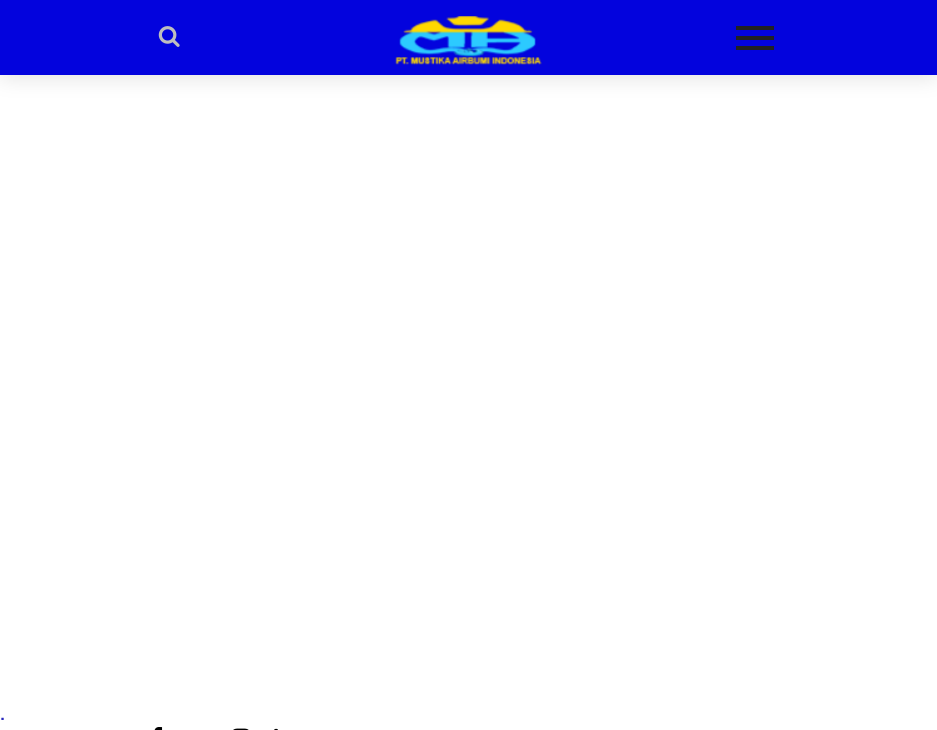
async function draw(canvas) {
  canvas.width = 937;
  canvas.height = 730;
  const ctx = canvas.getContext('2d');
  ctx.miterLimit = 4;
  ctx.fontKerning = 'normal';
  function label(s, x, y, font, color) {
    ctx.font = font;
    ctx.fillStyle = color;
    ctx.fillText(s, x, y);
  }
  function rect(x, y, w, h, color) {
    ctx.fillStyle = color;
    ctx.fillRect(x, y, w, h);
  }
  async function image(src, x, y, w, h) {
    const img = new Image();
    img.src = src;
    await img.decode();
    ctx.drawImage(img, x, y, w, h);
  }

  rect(0, 0, 937, 730, '#fff');
  ctx.fillStyle = '#0000001a';
  ctx.filter = 'blur(10px)';
  ctx.beginPath();
  ctx.rect(0, 4, 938, 75);
  ctx.fill();
  ctx.filter = 'none';
  rect(0, 0, 937, 75, '#0303dd');
  await image('assets/img1.png', 158, 26, 22, 21);
  await image('assets/img2.png', 395, 16, 147, 49);
  rect(736, 26, 38, 4, '#212121');
  rect(736, 36, 38, 4, '#212121');
  rect(736, 46, 38, 4, '#212121');
  label('.', 0, 720, '20px Rubik', '#2828bd');
  await image('assets/img3.png', 154, 727, 9, 3);
  await image('assets/img4.png', 233, 728, 16, 2);
  await image('assets/img5.png', 274, 728, 4, 2);
}

draw(document.querySelector('canvas'));
